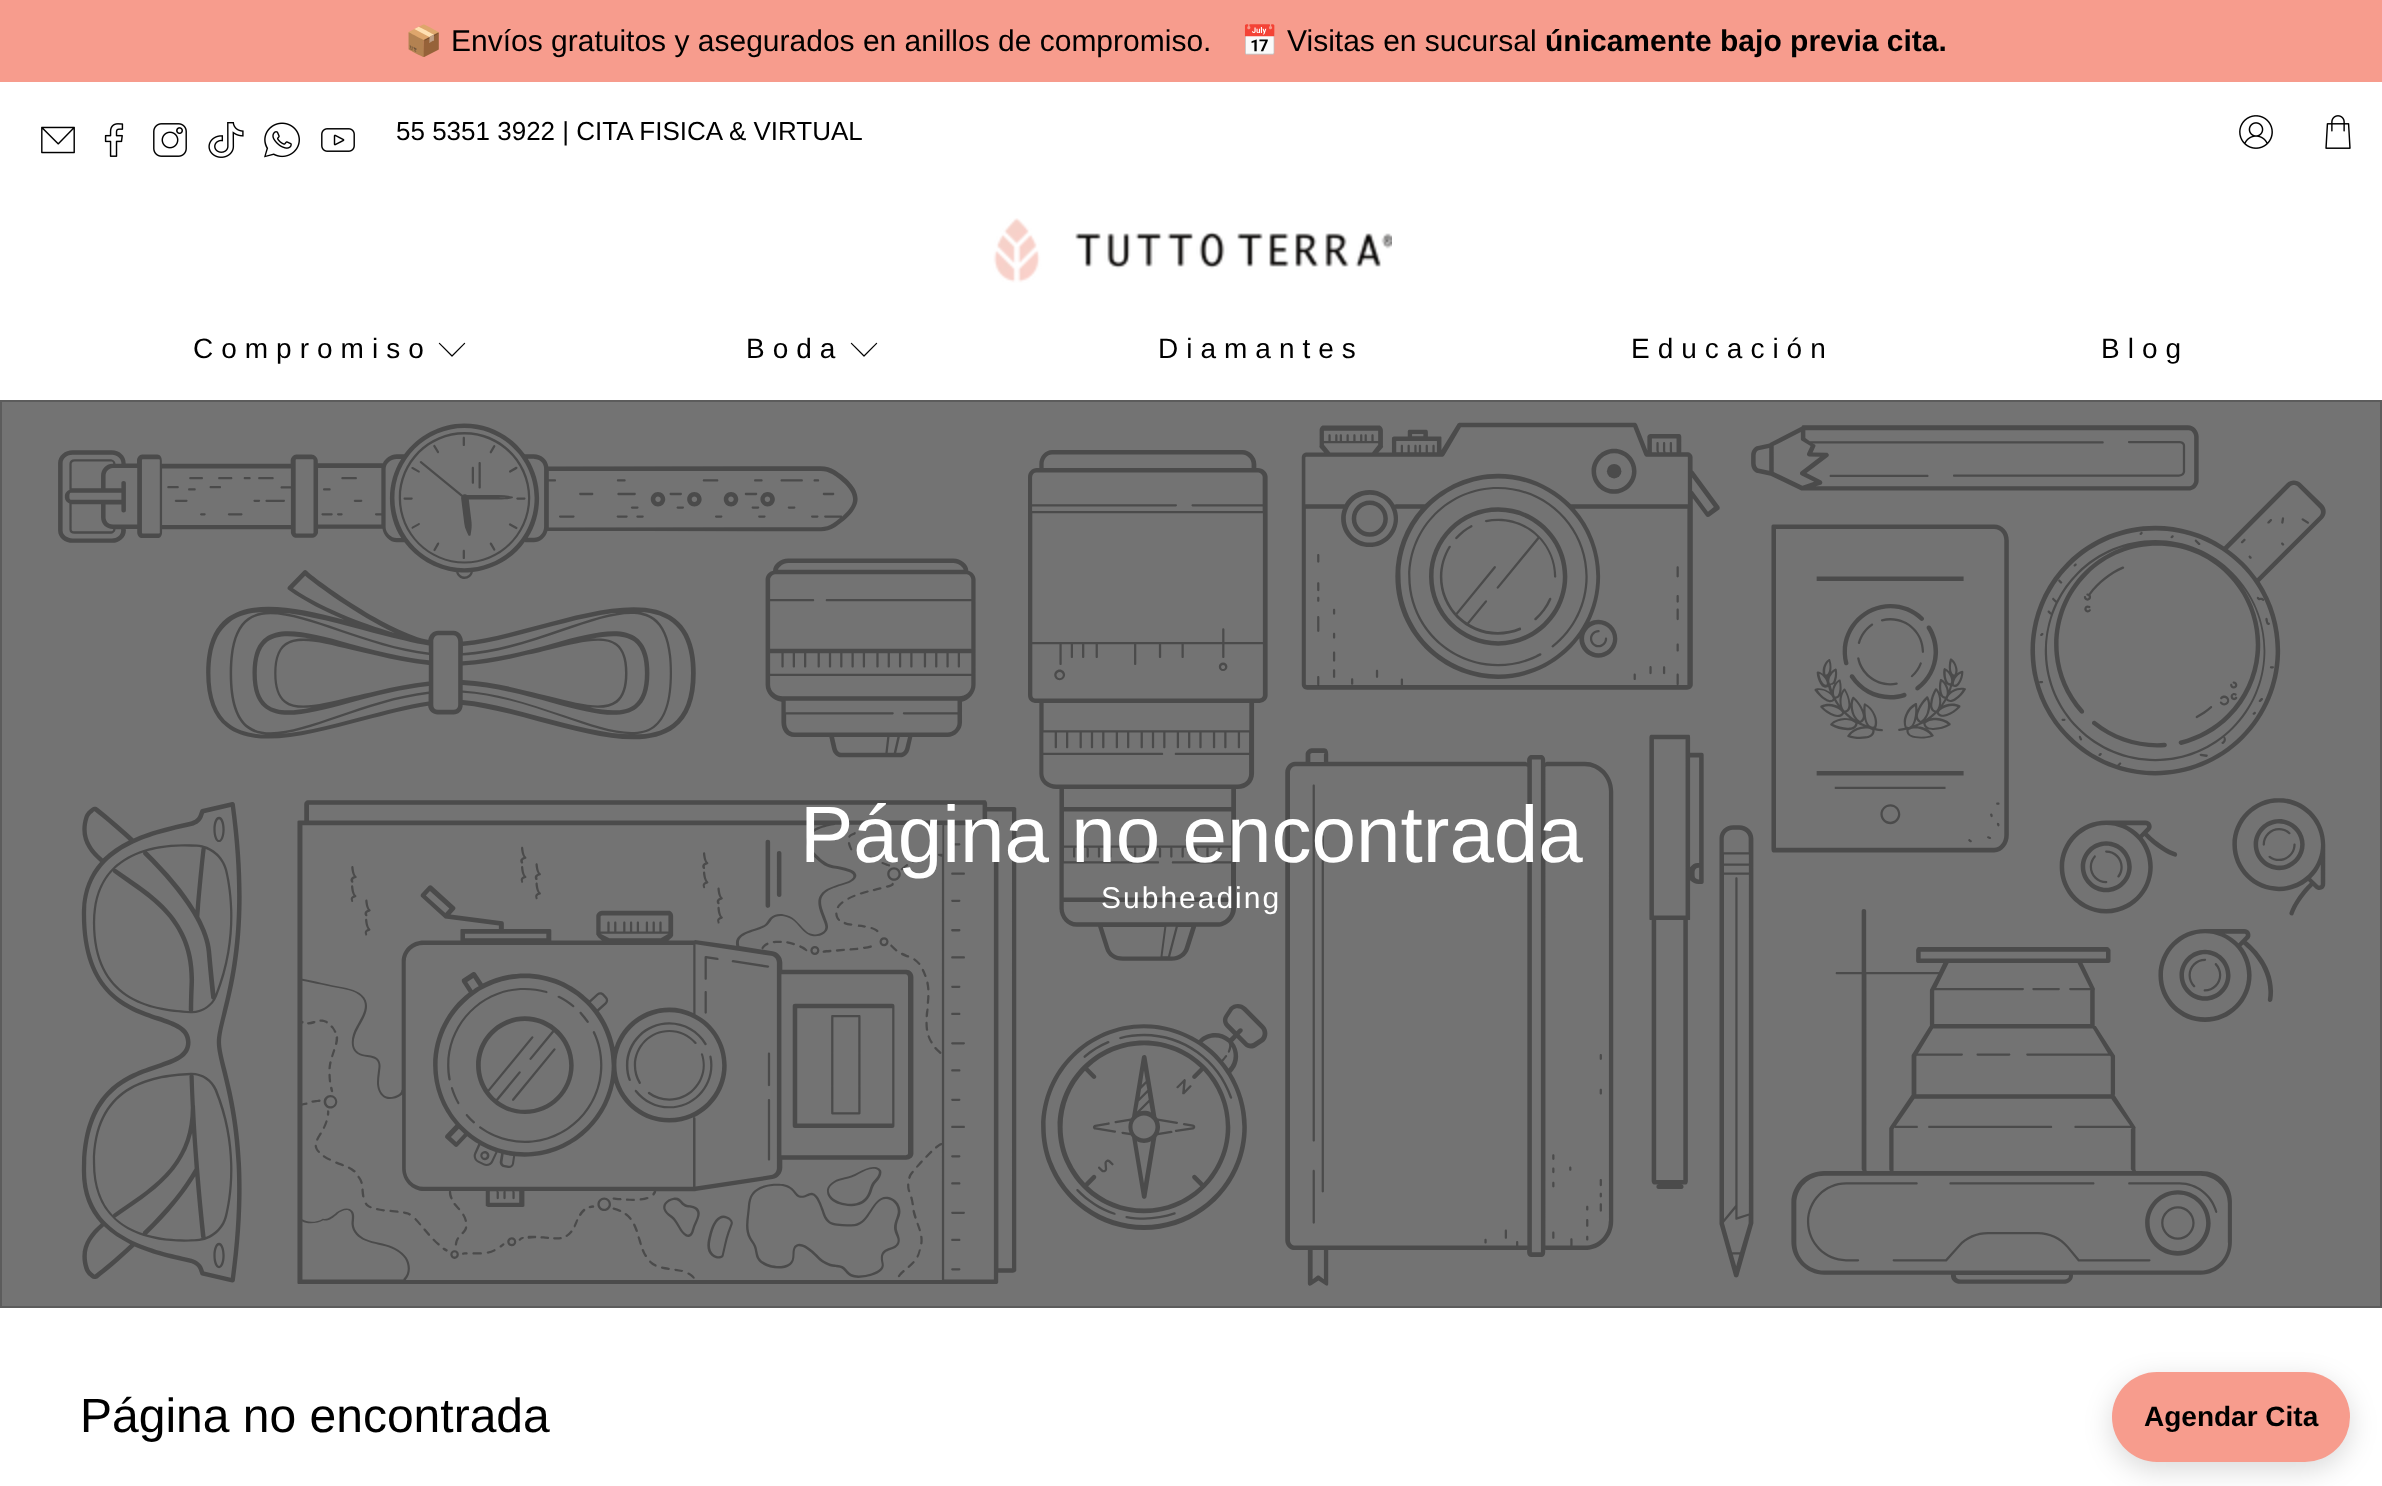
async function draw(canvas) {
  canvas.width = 2382;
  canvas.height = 1486;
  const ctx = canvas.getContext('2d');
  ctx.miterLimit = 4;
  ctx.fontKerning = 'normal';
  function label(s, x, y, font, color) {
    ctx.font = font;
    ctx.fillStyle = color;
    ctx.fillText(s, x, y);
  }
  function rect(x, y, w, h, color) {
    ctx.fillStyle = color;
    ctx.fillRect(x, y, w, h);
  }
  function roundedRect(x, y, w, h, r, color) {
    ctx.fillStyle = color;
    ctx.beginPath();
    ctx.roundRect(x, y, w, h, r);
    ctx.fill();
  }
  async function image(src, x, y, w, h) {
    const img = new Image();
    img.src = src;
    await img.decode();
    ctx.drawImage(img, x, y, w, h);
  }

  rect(0, 0, 2382, 1486, '#fff');
  rect(0, 0, 2382, 82, '#f79c8d');
  label('📦', 405, 51, '30px Noto Color Emoji', '#000');
  label('Envíos gratuitos y asegurados en anillos de compromiso.', 451, 51, '30px Liberation Sans', '#000');
  label('📅', 1241, 51, '30px Noto Color Emoji', '#000');
  label('Visitas en sucursal', 1287, 51, '30px Liberation Sans', '#000');
  label('únicamente bajo previa cita.', 1545, 51, 'bold 30px Liberation Sans', '#000');
  await image('assets/img1.png', 41, 126, 34, 28);
  await image('assets/img2.png', 104, 123, 20, 34);
  await image('assets/img3.png', 153, 123, 34, 34);
  await image('assets/img4.png', 208, 122, 36, 36);
  await image('assets/img5.png', 264, 122, 36, 36);
  await image('assets/img6.png', 321, 128, 34, 24);
  label('55 5351 3922 | CITA FISICA & VIRTUAL', 396, 140, '26px Liberation Sans', '#000');
  await image('assets/img7.png', 2239, 115, 34, 34);
  await image('assets/img8.png', 2325, 115, 26, 34);
  await image('assets/img9.png', 993, 218, 399, 65);
  ctx.letterSpacing = '8px';
  label('Compromiso', 193, 358, '28px Liberation Sans', '#000');
  await image('assets/img10.png', 438, 342, 28, 15);
  label('Boda', 746, 358, '28px Liberation Sans', '#000');
  await image('assets/img10.png', 850, 342, 28, 15);
  label('Diamantes', 1158, 358, '28px Liberation Sans', '#000');
  label('Educación', 1631, 358, '28px Liberation Sans', '#000');
  label('Blog', 2101, 358, '28px Liberation Sans', '#000');
  ctx.fillStyle = '#737373';
  ctx.beginPath();
  ctx.rect(1, 401, 2380, 906);
  ctx.fill();
  ctx.strokeStyle = '#5c5c5c';
  ctx.lineWidth = 2;
  ctx.stroke();
  await image('assets/img11.png', 58, 422, 2268, 864);
  ctx.letterSpacing = '0px';
  label('Página no encontrada', 800, 862, '80px Liberation Sans', '#fff');
  ctx.letterSpacing = '2px';
  label('Subheading', 1101, 908, '30px Liberation Sans', '#fff');
  ctx.letterSpacing = '0px';
  label('Página no encontrada', 80, 1432, '48px Liberation Sans', '#000');
  ctx.fillStyle = '#00000026';
  ctx.filter = 'blur(14px)';
  ctx.beginPath();
  ctx.roundRect(2112, 1380, 238, 90, 45);
  ctx.fill();
  ctx.filter = 'none';
  roundedRect(2112, 1372, 238, 90, 45, '#f79c8d');
  label('Agendar Cita', 2144, 1426, 'bold 28px Liberation Sans', '#000');
}

draw(document.querySelector('canvas'));
